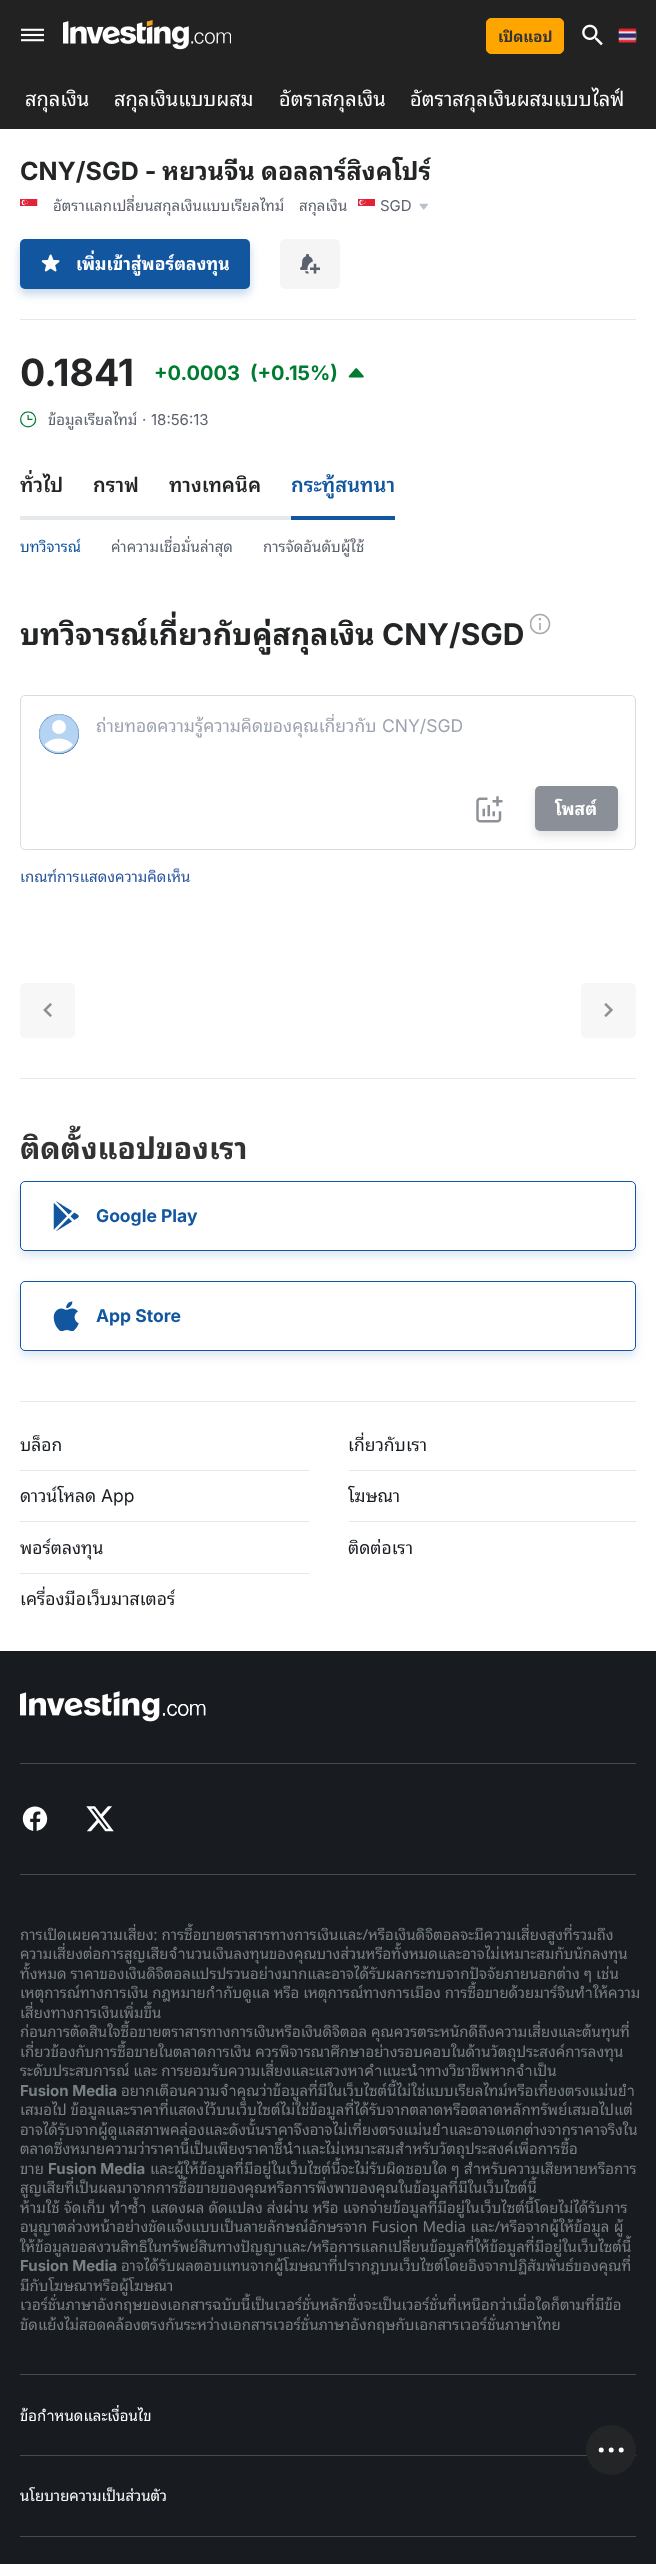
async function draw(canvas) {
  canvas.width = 656;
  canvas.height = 2564;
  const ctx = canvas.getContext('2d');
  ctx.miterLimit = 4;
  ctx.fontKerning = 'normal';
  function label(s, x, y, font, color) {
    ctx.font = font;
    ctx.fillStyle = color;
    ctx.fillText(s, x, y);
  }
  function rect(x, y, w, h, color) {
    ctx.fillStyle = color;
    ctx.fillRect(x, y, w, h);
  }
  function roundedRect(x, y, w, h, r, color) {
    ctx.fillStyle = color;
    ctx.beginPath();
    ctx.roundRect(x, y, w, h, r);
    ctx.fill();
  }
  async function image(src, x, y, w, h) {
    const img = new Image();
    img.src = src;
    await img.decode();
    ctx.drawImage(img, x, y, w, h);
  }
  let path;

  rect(0, 0, 656, 2564, '#fff');
  rect(0, 0, 656, 129, '#222');
  await image('assets/img1.png', 21, 28, 23, 14);
  await image('assets/img2.png', 63, 20, 168, 30);
  ctx.fillStyle = '#ffa500';
  ctx.beginPath();
  ctx.roundRect(486.5, 18.5, 77, 35, 4.5);
  ctx.fill();
  ctx.strokeStyle = '#ffa500';
  ctx.stroke();
  label('เปิดแอป', 498, 42, 'bold 15px Noto Sans Thai Looped', '#333');
  await image('assets/img3.png', 582, 24, 21, 22);
  await image('assets/img4.png', 618, 28, 19, 15);
  label('สกุลเงิน', 25, 106, '20px Noto Sans Thai Looped', '#fff');
  label('สกุลเงินแบบผสม', 114, 106, '20px Noto Sans Thai Looped', '#fff');
  label('อัตราสกุลเงิน', 279, 106, '20px Noto Sans Thai Looped', '#fff');
  label('อัตราสกุลเงินผสมแบบไลฟ์', 410, 106, '20px Noto Sans Thai Looped', '#fff');
  label('CNY/SGD -', 20, 180, 'bold 25px Inter', '#232526');
  label('หยวนจีน', 162, 180, 'bold 25px Noto Sans Thai Looped', '#232526');
  label('ดอลลาร์สิงคโปร์', 261, 180, 'bold 25px Noto Sans Thai Looped', '#232526');
  await image('assets/img5.png', 20, 199, 18, 7);
  ctx.save();
  ctx.beginPath();
  ctx.rect(53, 194, 231, 25);
  ctx.clip();
  label('อัตราแลกเปลี่ยนสกุลเงินแบบเรียลไทม์', 53, 211, '15px Noto Sans Thai Looped', '#5b616e');
  ctx.restore();
  label('สกุลเงิน', 299, 211, '15px Noto Sans Thai Looped', '#5b616e');
  await image('assets/img6.png', 358, 199, 17, 7);
  label('SGD', 380, 211, '15px Inter', '#5b616e');
  await image('assets/img7.png', 419, 203, 9, 7);
  ctx.fillStyle = '#1256a040';
  ctx.filter = 'blur(5px)';
  ctx.beginPath();
  ctx.roundRect(20, 244, 230, 50, 5);
  ctx.fill();
  ctx.filter = 'none';
  roundedRect(20, 239, 230, 50, 5, '#1256a0');
  await image('assets/img8.png', 41, 254, 19, 18);
  label('เพิ่มเข้าสู่พอร์ตลงทุน', 76, 270, 'bold 17.5px Noto Sans Thai Looped', '#fff');
  roundedRect(280, 239, 60, 50, 5, '#f5f5f5');
  await image('assets/img9.png', 300, 254, 20, 20);
  rect(20, 319, 616, 1, '#e6e9eb');
  label('0.1841', 20, 386, 'bold 37.5px Inter', '#232526');
  label('+0.0003', 154, 380, 'bold 20px Inter', '#007c32');
  label('(+0.15%)', 250, 380, 'bold 20px Inter', '#007c32');
  await image('assets/img10.png', 348, 368, 16, 10);
  await image('assets/img11.png', 20, 411, 17, 17);
  label('ข้อมูลเรียลไทม์', 48, 425, '15px Noto Sans Thai Looped', '#5b616e');
  label('·', 142, 425, '15px Inter', '#5b616e');
  label('18:56:13', 151, 425, '15px Inter', '#5b616e');
  rect(20, 516, 271, 4, '#e6e9eb');
  ctx.save();
  ctx.beginPath();
  ctx.rect(20, 450, 616, 70);
  ctx.clip();
  label('ทั่วไป', 20, 492, '600 20px Noto Sans Thai Looped', '#232526');
  ctx.restore();
  label('กราฟ', 93, 492, '600 20px Noto Sans Thai Looped', '#232526');
  label('ทางเทคนิค', 169, 492, '600 20px Noto Sans Thai Looped', '#232526');
  rect(291, 516, 104, 4, '#1256a0');
  label('กระทู้สนทนา', 291, 492, '600 20px Noto Sans Thai Looped', '#1256a0');
  label('บทวิจารณ์', 20, 552, '15px Noto Sans Thai Looped', '#1256a0');
  label('ค่าความเชื่อมั่นล่าสุด', 111, 552, '15px Noto Sans Thai Looped', '#5b616e');
  label('การจัดอันดับผู้ใช้', 263, 552, '15px Noto Sans Thai Looped', '#5b616e');
  label('บทวิจารณ์เกี่ยวกับคู่สกุลเงิน', 20, 645, 'bold 30px Noto Sans Thai Looped', '#232526');
  label('CNY/SGD', 382, 645, 'bold 30px Inter', '#232526');
  await image('assets/img12.png', 530, 613, 21, 22);
  ctx.beginPath();
  ctx.roundRect(20.5, 695.5, 615, 154, 4.5);
  ctx.strokeStyle = '#d9dcdf';
  ctx.stroke();
  ctx.fillStyle = '#1256a0';
  ctx.beginPath();
  ctx.arc(59, 734, 20, 0, 2 * Math.PI);
  ctx.fill();
  ctx.fillStyle = '#b5d4f3';
  path = new Path2D('M59 714C64 714 69 716 72.5 719C85.5 731 77.5 753.5 59 753.5C39.5 753.5 31.5 728 48 717.5C51 715 55 714 59 714Z');
  ctx.fill(path);
  ctx.fillStyle = '#fff';
  path = new Path2D('M44.5 744.5C52 736.5 65.5 736.5 73 744.5C66 754 51.5 754 44.5 744.5');
  ctx.fill(path, 'evenodd');
  ctx.beginPath();
  ctx.arc(59, 727, 7, 0, 2 * Math.PI);
  ctx.fill();
  ctx.beginPath();
  ctx.arc(59, 734, 19.5, 0, 2 * Math.PI);
  ctx.strokeStyle = '#0000001a';
  ctx.stroke();
  ctx.save();
  ctx.beginPath();
  ctx.rect(96, 714, 522, 50);
  ctx.clip();
  label('ถ่ายทอดความรู้ความคิดของคุณเกี่ยวกับ', 96, 732, '17.5px Noto Sans Thai Looped', '#9ca3af');
  ctx.restore();
  label('CNY/SGD', 382, 732, '17.5px Inter', '#9ca3af');
  await image('assets/img13.png', 476, 796, 27, 27);
  ctx.fillStyle = '#8b8f9840';
  ctx.filter = 'blur(5px)';
  ctx.beginPath();
  ctx.roundRect(535, 791, 83, 45, 5);
  ctx.fill();
  ctx.filter = 'none';
  roundedRect(535, 786, 83, 45, 5, '#8b8f98');
  label('โพสต์', 555, 815, 'bold 17.5px Noto Sans Thai Looped', '#fff');
  label('เกณฑ์การแสดงความคิดเห็น', 20, 882, '15px Noto Sans Thai Looped', '#28559b');
  roundedRect(20, 983, 55, 55, 5, '#f7f7f8');
  await image('assets/img14.png', 43, 1003, 9, 14);
  roundedRect(581, 983, 55, 55, 5, '#f7f7f8');
  await image('assets/img15.png', 604, 1003, 9, 14);
  rect(0, 1651, 656, 913, '#181c21');
  rect(20, 2455, 616, 1, '#46494d');
  ctx.fillStyle = '#232526';
  ctx.beginPath();
  ctx.arc(611, 2450, 25, 0, 2 * Math.PI);
  ctx.fill();
  ctx.fillStyle = '#fff';
  ctx.beginPath();
  ctx.arc(621.2, 2450, 2.5, 0, 2 * Math.PI);
  ctx.fill();
  ctx.beginPath();
  ctx.arc(601.2, 2450, 2.5, 0, 2 * Math.PI);
  ctx.fill();
  ctx.beginPath();
  ctx.arc(611.2, 2450, 2.5, 0, 2 * Math.PI);
  ctx.fill();
  rect(20, 1078, 616, 1, '#e6e9eb');
  rect(20, 1401, 616, 1, '#e6e9eb');
  label('ติดตั้งแอปของเรา', 20, 1159, 'bold 30px Noto Sans Thai Looped', '#333');
  ctx.fillStyle = '#1256a026';
  ctx.filter = 'blur(5px)';
  ctx.beginPath();
  ctx.roundRect(20, 1186, 616, 70, 5);
  ctx.fill();
  ctx.filter = 'none';
  ctx.fillStyle = '#fff';
  ctx.beginPath();
  ctx.roundRect(20.5, 1181.5, 615, 69, 4.5);
  ctx.fill();
  ctx.strokeStyle = '#1256a0';
  ctx.stroke();
  await image('assets/img16.png', 53, 1201, 26, 31);
  label('Google Play', 96, 1222, 'bold 17.5px Inter', '#1256a0');
  ctx.fillStyle = '#1256a026';
  ctx.filter = 'blur(5px)';
  ctx.beginPath();
  ctx.roundRect(20, 1286, 616, 70, 5);
  ctx.fill();
  ctx.filter = 'none';
  ctx.fillStyle = '#fff';
  ctx.beginPath();
  ctx.roundRect(20.5, 1281.5, 615, 69, 4.5);
  ctx.fill();
  ctx.stroke();
  await image('assets/img17.png', 53, 1301, 26, 31);
  label('App Store', 96, 1322, 'bold 17.5px Inter', '#1256a0');
  rect(20, 1470, 289, 1, '#e5e7eb');
  label('บล็อก', 20, 1451, '17.5px Noto Sans Thai Looped', '#181c21');
  rect(20, 1521, 289, 1, '#e5e7eb');
  label('ดาวน์โหลด', 20, 1502, '17.5px Noto Sans Thai Looped', '#181c21');
  label('App', 101, 1502, '17.5px Inter', '#181c21');
  rect(20, 1573, 289, 1, '#e5e7eb');
  label('พอร์ตลงทุน', 20, 1554, '17.5px Noto Sans Thai Looped', '#181c21');
  label('เครื่องมือเว็บมาสเตอร์', 20, 1605, '17.5px Noto Sans Thai Looped', '#181c21');
  rect(349, 1470, 287, 1, '#e5e7eb');
  label('เกี่ยวกับเรา', 348, 1451, '17.5px Noto Sans Thai Looped', '#181c21');
  rect(349, 1521, 287, 1, '#e5e7eb');
  label('โฆษณา', 348, 1502, '17.5px Noto Sans Thai Looped', '#181c21');
  label('ติดต่อเรา', 348, 1554, '17.5px Noto Sans Thai Looped', '#181c21');
  rect(20, 1763, 616, 1, '#46494d');
  await image('assets/img18.png', 20, 1691, 186, 31);
  rect(20, 1874, 616, 1, '#46494d');
  await image('assets/img19.png', 22, 1806, 26, 25);
  await image('assets/img20.png', 86, 1806, 28, 26);
  rect(20, 2374, 616, 1, '#46494d');
  label('การเปิดเผยความเสี่ยง: การซื้อขายตราสารทางการเงินและ/หรือเงินดิจิตอลจะมีความเสี่ยงสูงที่รวมถึง', 20, 1940, '15px Noto Sans Thai Looped', '#798187');
  label('ความเสี่ยงต่อการสูญเสียจำนวนเงินลงทุนของคุณบางส่วนหรือทั้งหมดและอาจไม่เหมาะสมกับนักลงทุน', 20, 1959, '15px Noto Sans Thai Looped', '#798187');
  label('ทั้งหมด ราคาของเงินดิจิตอลแปรปรวนอย่างมากและอาจได้รับผลกระทบจากปัจจัยภายนอกต่าง ๆ เช่น', 20, 1979, '15px Noto Sans Thai Looped', '#798187');
  label('เหตุการณ์ทางการเงิน กฎหมายกำกับดูแล หรือ เหตุการณ์ทางการเมือง การซื้อขายด้วยมาร์จินทำให้ความ', 20, 1998, '15px Noto Sans Thai Looped', '#798187');
  label('เสี่ยงทางการเงินเพิ่มขึ้น', 20, 2018, '15px Noto Sans Thai Looped', '#798187');
  label('ก่อนการตัดสินใจซื้อขายตราสารทางการเงินหรือเงินดิจิตอล คุณควรตระหนักดีถึงความเสี่ยงและต้นทุนที่', 20, 2037, '15px Noto Sans Thai Looped', '#798187');
  label('เกี่ยวข้องกับการซื้อขายในตลาดการเงิน ควรพิจารณาศึกษาอย่างรอบคอบในด้านวัตถุประสงค์การลงทุน', 20, 2057, '15px Noto Sans Thai Looped', '#798187');
  label('ระดับประสบการณ์ และ การยอมรับความเสี่ยงและแสวงหาคำแนะนำทางวิชาชีพหากจำเป็น', 20, 2076, '15px Noto Sans Thai Looped', '#798187');
  label('Fusion Media', 20, 2096, 'bold 15px Inter', '#798187');
  label('อยากเตือนความจำคุณว่าข้อมูลที่มีในเว็บไซต์นี้ไม่ใช่แบบเรียลไทม์หรือเที่ยงตรงแม่นยำ', 121, 2096, '15px Noto Sans Thai Looped', '#798187');
  label('เสมอไป ข้อมูลและราคาที่แสดงไว้บนเว็บไซต์ไม่ใช่ข้อมูลที่ได้รับจากตลาดหรือตลาดหลักทรัพย์เสมอไปแต่', 20, 2115, '15px Noto Sans Thai Looped', '#798187');
  label('อาจได้รับจากผู้ดูแลสภาพคล่องและดังนั้นราคาจึงอาจไม่เที่ยงตรงแม่นยำและอาจแตกต่างจากราคาจริงใน', 20, 2135, '15px Noto Sans Thai Looped', '#798187');
  label('ตลาดซึ่งหมายความว่าราคานี้เป็นเพียงราคาชี้นำและไม่เหมาะสมสำหรับวัตถุประสงค์เพื่อการซื้อ', 20, 2154, '15px Noto Sans Thai Looped', '#798187');
  label('ขาย', 20, 2174, '15px Noto Sans Thai Looped', '#798187');
  label('Fusion Media', 48, 2174, 'bold 15px Inter', '#798187');
  label('และผู้ให้ข้อมูลที่มีอยู่ในเว็บไซต์นี้จะไม่รับผิดชอบใด ๆ สำหรับความเสียหายหรือการ', 150, 2174, '15px Noto Sans Thai Looped', '#798187');
  label('สูญเสียที่เป็นผลมาจากการซื้อขายของคุณหรือการพึ่งพาของคุณในข้อมูลที่มีในเว็บไซต์นี้', 20, 2193, '15px Noto Sans Thai Looped', '#798187');
  ctx.wordSpacing = '0.25px';
  label('ห้ามใช้ จัดเก็บ ทำซ้ำ แสดงผล ดัดแปลง ส่งผ่าน หรือ แจกจ่ายข้อมูลที่มีอยู่ในเว็บไซต์นี้โดยไม่ได้รับการ', 20, 2213, '15px Noto Sans Thai Looped', '#798187');
  ctx.wordSpacing = '0.5px';
  label('อนุญาตล่วงหน้าอย่างชัดแจ้งแบบเป็นลายลักษณ์อักษรจาก Fusion Media และ/หรือจากผู้ให้ข้อมูล ผู้', 20, 2232, '15px Noto Sans Thai Looped', '#798187');
  ctx.wordSpacing = '0px';
  label('ให้ข้อมูลขอสงวนสิทธิในทรัพย์สินทางปัญญาและ/หรือการแลกเปลี่ยนข้อมูลที่ให้ข้อมูลที่มีอยู่ในเว็บไซต์นี้', 20, 2252, '15px Noto Sans Thai Looped', '#798187');
  label('Fusion Media', 20, 2271, 'bold 15px Inter', '#798187');
  label('อาจได้รับผลตอบแทนจากผู้โฆษณาที่ปรากฎบนเว็บไซต์โดยอิงจากปฏิสัมพันธ์ของคุณที่', 121, 2271, '15px Noto Sans Thai Looped', '#798187');
  label('มีกับโฆษณาหรือผู้โฆษณา', 20, 2291, '15px Noto Sans Thai Looped', '#798187');
  label('เวอร์ชั่นภาษาอังกฤษของเอกสารฉบับนี้เป็นเวอร์ชั่นหลักซึ่งจะเป็นเวอร์ชั่นที่เหนือกว่าเมื่อใดก็ตามที่มีข้อ', 20, 2310, '15px Noto Sans Thai Looped', '#798187');
  label('ขัดแย้งไม่สอดคล้องตรงกันระหว่างเอกสารเวอร์ชั่นภาษาอังกฤษกับเอกสารเวอร์ชั่นภาษาไทย', 20, 2330, '15px Noto Sans Thai Looped', '#798187');
  label('ข้อกำหนดและเงื่อนไข', 20, 2421, '15px Noto Sans Thai Looped', '#fff');
  rect(20, 2536, 616, 1, '#46494d');
  label('นโยบายความเป็นส่วนตัว', 20, 2501, '15px Noto Sans Thai Looped', '#fff');
}

draw(document.querySelector('canvas'));
